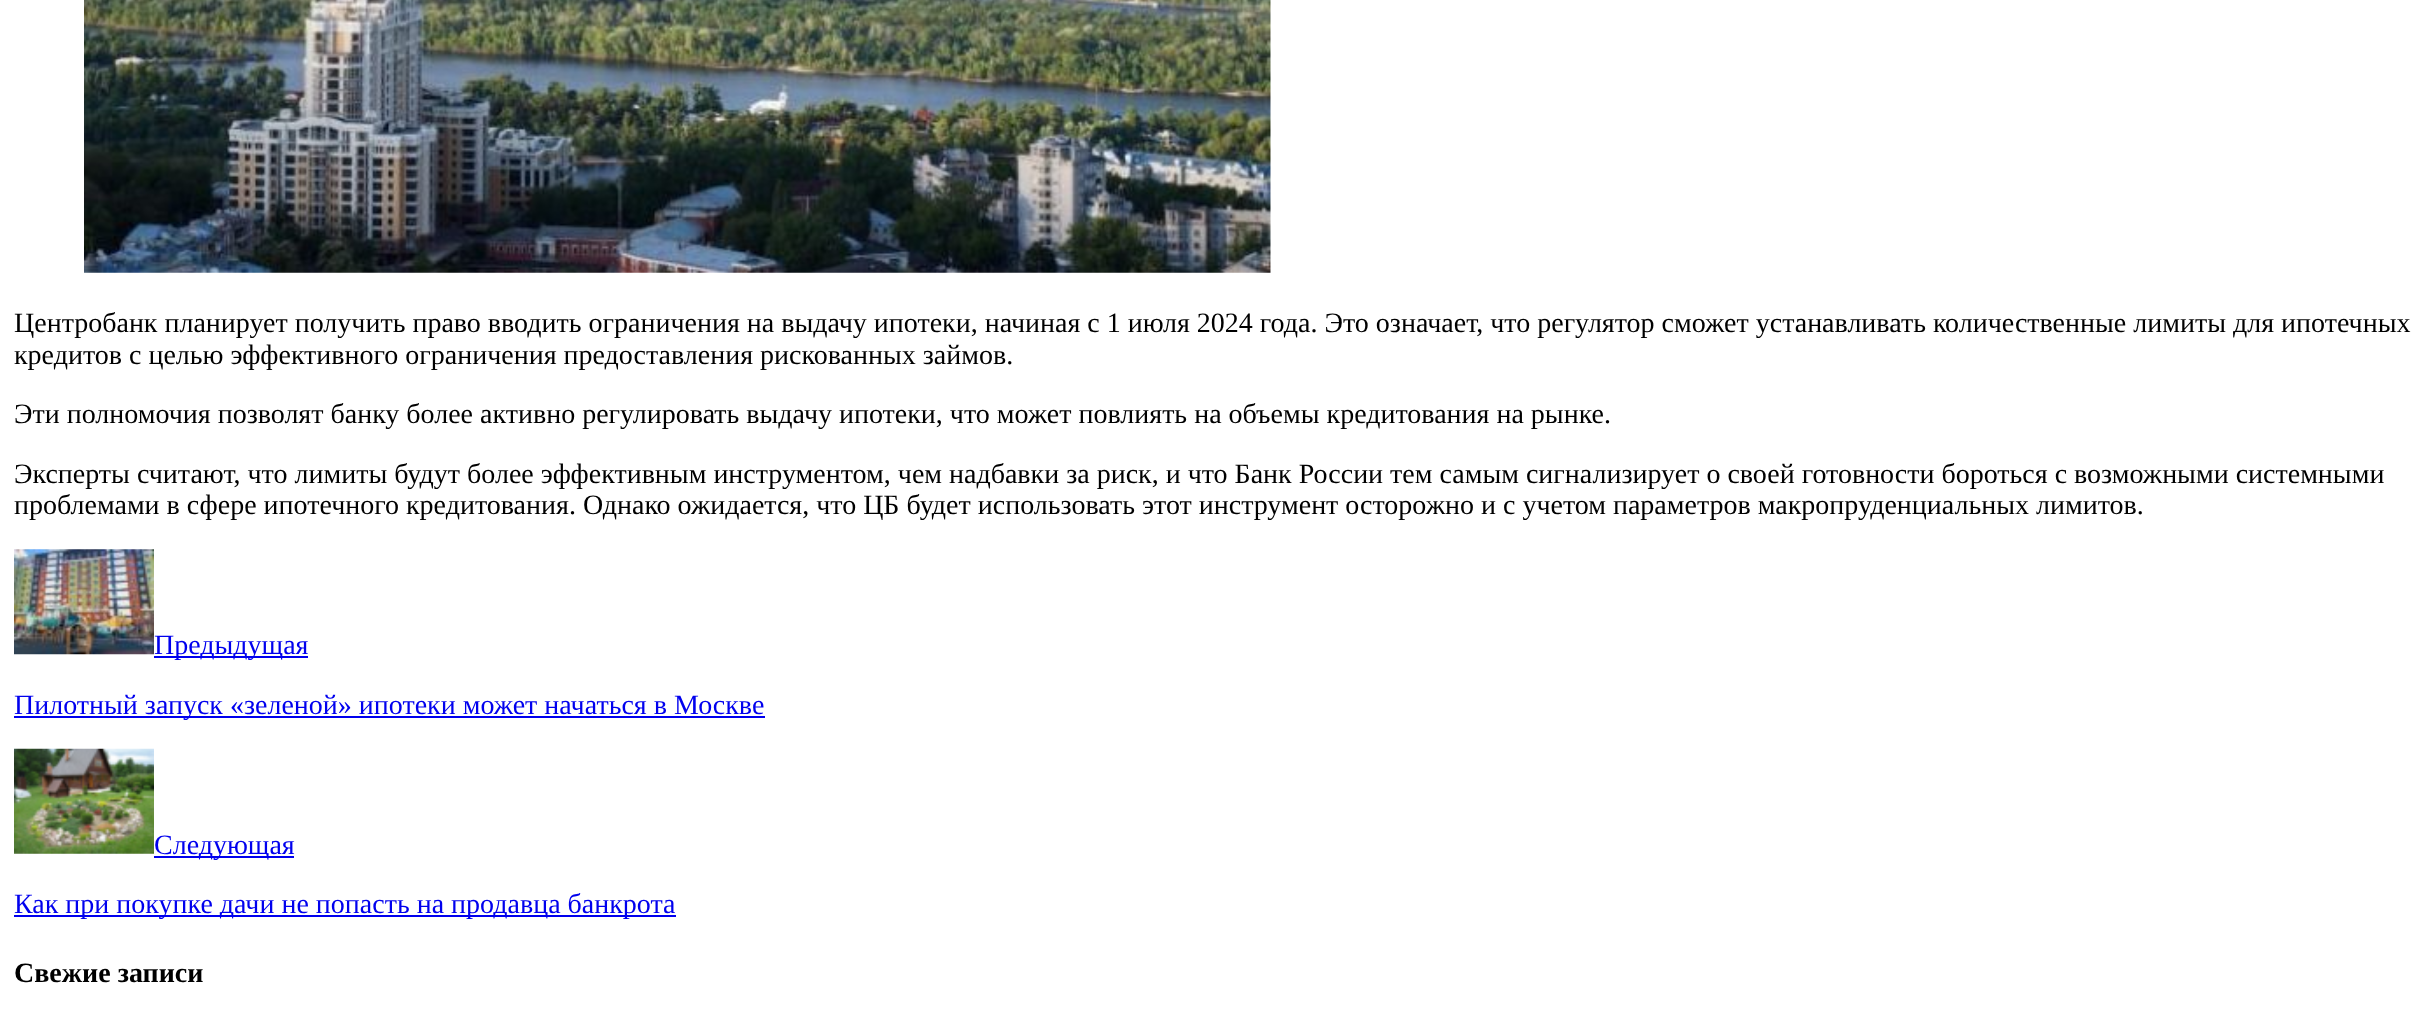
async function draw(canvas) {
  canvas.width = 2432;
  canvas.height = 1019;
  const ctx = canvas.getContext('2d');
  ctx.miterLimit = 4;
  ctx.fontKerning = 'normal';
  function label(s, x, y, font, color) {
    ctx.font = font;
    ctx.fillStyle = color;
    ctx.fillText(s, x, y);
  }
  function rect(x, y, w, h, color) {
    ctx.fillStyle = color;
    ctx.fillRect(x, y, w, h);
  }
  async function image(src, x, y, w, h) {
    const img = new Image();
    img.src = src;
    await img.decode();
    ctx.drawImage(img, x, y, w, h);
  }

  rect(0, 0, 2432, 1019, '#fff');
  await image('assets/img1.png', 84, 0, 1187, 273);
  label('Центробанк планирует получить право вводить ограничения на выдачу ипотеки, начиная с 1 июля 2024 года. Это означает, что регулятор сможет устанавливать количественные лимиты для ипотечных', 14, 332, '28px Liberation Serif', '#000');
  label('кредитов с целью эффективного ограничения предоставления рискованных займов.', 14, 364, '28px Liberation Serif', '#000');
  label('Эти полномочия позволят банку более активно регулировать выдачу ипотеки, что может повлиять на объемы кредитования на рынке.', 14, 423, '28px Liberation Serif', '#000');
  label('Эксперты считают, что лимиты будут более эффективным инструментом, чем надбавки за риск, и что Банк России тем самым сигнализирует о своей готовности бороться с возможными системными', 14, 483, '28px Liberation Serif', '#000');
  label('проблемами в сфере ипотечного кредитования. Однако ожидается, что ЦБ будет использовать этот инструмент осторожно и с учетом параметров макропруденциальных лимитов.', 14, 514, '28px Liberation Serif', '#000');
  await image('assets/img2.png', 14, 549, 140, 106);
  rect(154, 656, 154, 2, '#00e');
  label('Предыдущая', 154, 654, '28px Liberation Serif', '#00e');
  rect(14, 716, 751, 2, '#00e');
  label('Пилотный запуск «зеленой» ипотеки может начаться в Москве', 14, 714, '28px Liberation Serif', '#00e');
  await image('assets/img3.png', 14, 748, 140, 106);
  rect(154, 856, 140, 2, '#00e');
  label('Следующая', 154, 854, '28px Liberation Serif', '#00e');
  rect(14, 915, 662, 2, '#00e');
  label('Как при покупке дачи не попасть на продавца банкрота', 14, 913, '28px Liberation Serif', '#00e');
  label('Свежие записи', 14, 982, 'bold 28px Liberation Serif', '#000');
}

draw(document.querySelector('canvas'));
